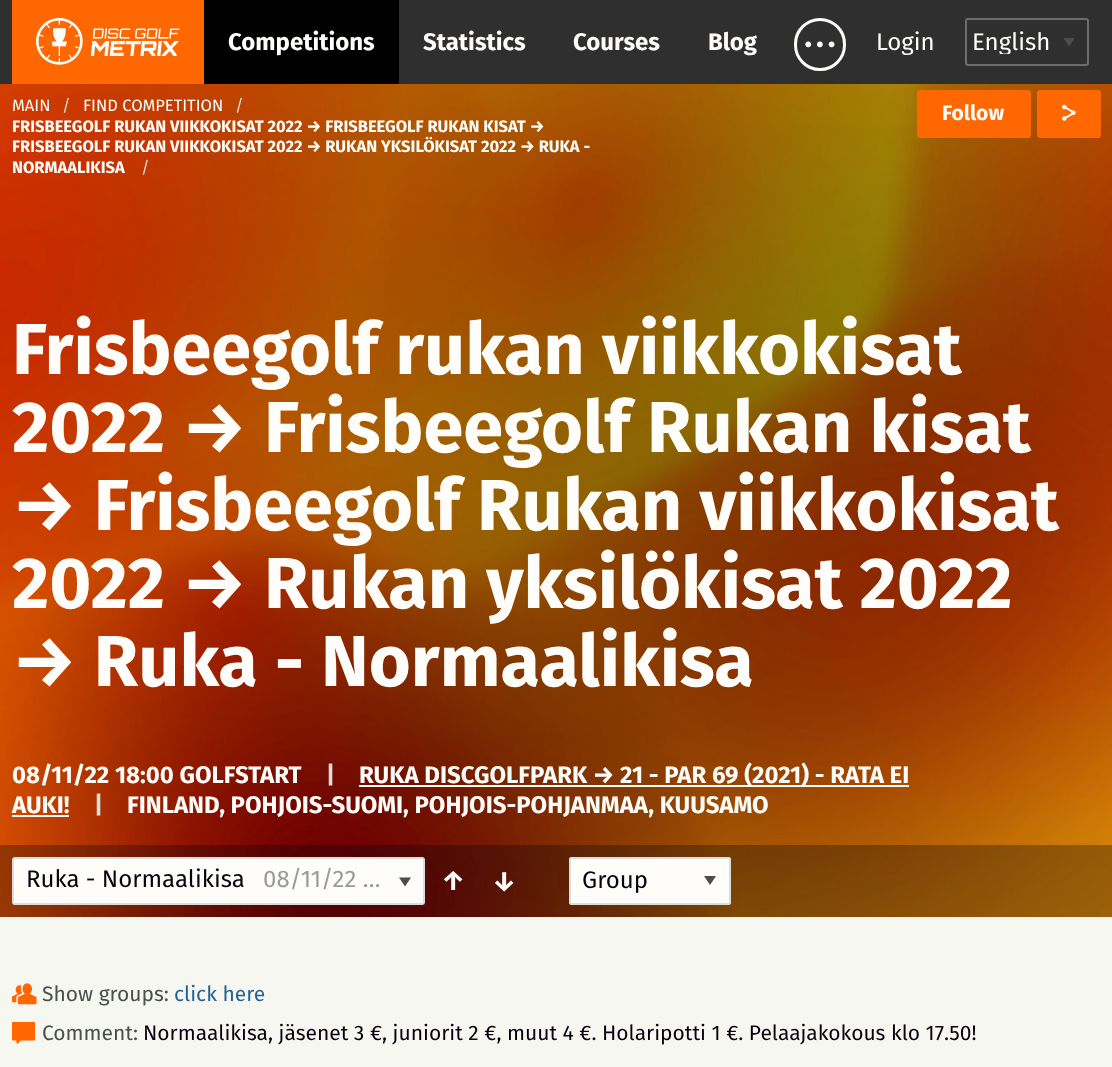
async function draw(canvas) {
  canvas.width = 1112;
  canvas.height = 1067;
  const ctx = canvas.getContext('2d');
  ctx.miterLimit = 4;
  ctx.fontKerning = 'normal';
  function label(s, x, y, font, color) {
    ctx.font = font;
    ctx.fillStyle = color;
    ctx.fillText(s, x, y);
  }
  function rect(x, y, w, h, color) {
    ctx.fillStyle = color;
    ctx.fillRect(x, y, w, h);
  }
  function roundedRect(x, y, w, h, r, color) {
    ctx.fillStyle = color;
    ctx.beginPath();
    ctx.roundRect(x, y, w, h, r);
    ctx.fill();
  }
  async function image(src, x, y, w, h) {
    const img = new Image();
    img.src = src;
    await img.decode();
    ctx.drawImage(img, x, y, w, h);
  }
  let path;

  rect(0, 0, 1112, 1067, '#f7f7f2');
  rect(0, 0, 1112, 84, '#2f2f30');
  rect(12, 0, 192, 84, '#ff6700');
  await image('assets/img1.png', 36, 18, 144, 47);
  rect(204, 0, 195, 84, '#000');
  label('Competitions', 228, 50, 'bold 24px Fira Sans', '#fffdf9');
  label('Statistics', 423, 50, 'bold 24px Fira Sans', '#fffdf9');
  label('Courses', 573, 50, 'bold 24px Fira Sans', '#fffdf9');
  label('Blog', 708, 50, 'bold 24px Fira Sans', '#fffdf9');
  ctx.beginPath();
  ctx.roundRect(795.5, 19.5, 49, 50, 24.5);
  ctx.strokeStyle = '#fffdf9';
  ctx.lineWidth = 3;
  ctx.stroke();
  await image('assets/img2.png', 805, 41, 30, 7);
  label('Login', 876, 50, '24px Fira Sans', '#fffdf9');
  ctx.save();
  ctx.beginPath();
  ctx.rect(1062, 38, 14, 9);
  ctx.clip();
  ctx.fillStyle = '#4a4f4c';
  path = new Path2D('M1063 37.5H1075L1069 46.5Z');
  ctx.fill(path);
  ctx.restore();
  ctx.beginPath();
  ctx.roundRect(966, 19, 122, 46, 2);
  ctx.strokeStyle = '#6d6d6c';
  ctx.lineWidth = 2;
  ctx.stroke();
  ctx.save();
  ctx.beginPath();
  ctx.rect(972, 30, 80, 24);
  ctx.clip();
  label('English', 972, 50, '24px Fira Sans', '#fffdf9');
  ctx.restore();
  await image('assets/img3.png', 0, 84, 1112, 833);
  label('MAIN', 12, 111, '16.5px Fira Sans', '#fffdf9');
  label('/', 62, 111, '16.5px Fira Sans', '#d8dfdb');
  label('FIND COMPETITION', 83, 111, '16.5px Fira Sans', '#fffdf9');
  label('/', 235, 111, '16.5px Fira Sans', '#d8dfdb');
  label('FRISBEEGOLF RUKAN VIIKKOKISAT 2022 → FRISBEEGOLF RUKAN KISAT →', 12, 132, 'bold 16.5px Fira Sans', '#fffdf9');
  label('FRISBEEGOLF RUKAN VIIKKOKISAT 2022 → RUKAN YKSILÖKISAT 2022 → RUKA -', 12, 152, 'bold 16.5px Fira Sans', '#fffdf9');
  label('NORMAALIKISA', 12, 173, 'bold 16.5px Fira Sans', '#fffdf9');
  label('/', 141, 173, '16.5px Fira Sans', '#d8dfdb');
  roundedRect(917, 90, 114, 48, 3, '#ff6700');
  label('Follow', 942, 120, 'bold 21px Fira Sans', '#fffdf9');
  roundedRect(1037, 90, 64, 48, 3, '#ff6700');
  await image('assets/img4.png', 1062, 104, 14, 17);
  label('Frisbeegolf rukan viikkokisat', 12, 374, 'bold 72px Fira Sans', '#fffdf9');
  label('2022 → Frisbeegolf Rukan kisat', 12, 452, 'bold 72px Fira Sans', '#fffdf9');
  label('→ Frisbeegolf Rukan viikkokisat', 12, 530, 'bold 72px Fira Sans', '#fffdf9');
  label('2022 → Rukan yksilökisat 2022', 12, 608, 'bold 72px Fira Sans', '#fffdf9');
  label('→ Ruka - Normaalikisa', 12, 686, 'bold 72px Fira Sans', '#fffdf9');
  label('08/11/22 18:00 GOLFSTART', 12, 783, 'bold 24px Fira Sans', '#fffdf9');
  label('|', 326, 783, 'bold 24px Fira Sans', '#d8dfdb');
  rect(359, 785, 550, 2, '#fffdf9');
  label('RUKA DISCGOLFPARK → 21 - PAR 69 (2021) - RATA EI', 359, 783, 'bold 24px Fira Sans', '#fffdf9');
  label('AUKI!', 12, 813, 'bold 24px Fira Sans', '#fffdf9');
  rect(12, 815, 57, 2, '#fffdf9');
  label('|', 94, 813, 'bold 24px Fira Sans', '#d8dfdb');
  label('FINLAND, POHJOIS-SUOMI, POHJOIS-POHJANMAA, KUUSAMO', 127, 813, 'bold 24px Fira Sans', '#fffdf9');
  rect(0, 845, 1112, 72, '#07020d4d');
  ctx.fillStyle = '#fffdf9';
  ctx.beginPath();
  ctx.roundRect(13, 858, 411, 46, 2);
  ctx.fill();
  ctx.strokeStyle = '#d8dfdb';
  ctx.stroke();
  label('Ruka - Normaalikisa', 26, 887, '24px Fira Sans', '#07020d');
  label('08/11/22 …', 263, 887, '24px Fira Sans', '#969c98');
  ctx.fillStyle = '#4a4f4c';
  path = new Path2D('M399 877.5H411L405 886.5Z');
  ctx.fill(path);
  label('↑', 441, 890, 'bold 27px Fira Sans', '#fffdf9');
  label('↓', 492, 890, 'bold 27px Fira Sans', '#fffdf9');
  roundedRect(569, 857, 162, 48, 3, '#fffdf9');
  ctx.fillStyle = '#4a4f4c';
  path = new Path2D('M704 876H716L710 885Z');
  ctx.fill(path);
  ctx.beginPath();
  ctx.roundRect(570, 858, 160, 46, 2);
  ctx.stroke();
  label('Group', 582, 888, '24px Fira Sans', '#07020d');
  await image('assets/img5.png', 12, 983, 25, 22);
  label('Show groups:', 42, 1001, '21px Fira Sans', '#4a4f4c');
  label('click here', 174, 1001, '21px Fira Sans', '#246291');
  await image('assets/img6.png', 12, 1021, 24, 23);
  label('Comment:', 42, 1040, '21px Fira Sans', '#4a4f4c');
  label('Normaalikisa, jäsenet 3 €, juniorit 2 €, muut 4 €. Holaripotti 1 €. Pelaajakokous klo 17.50!', 143, 1040, '21px Fira Sans', '#07020d');
}

draw(document.querySelector('canvas'));
